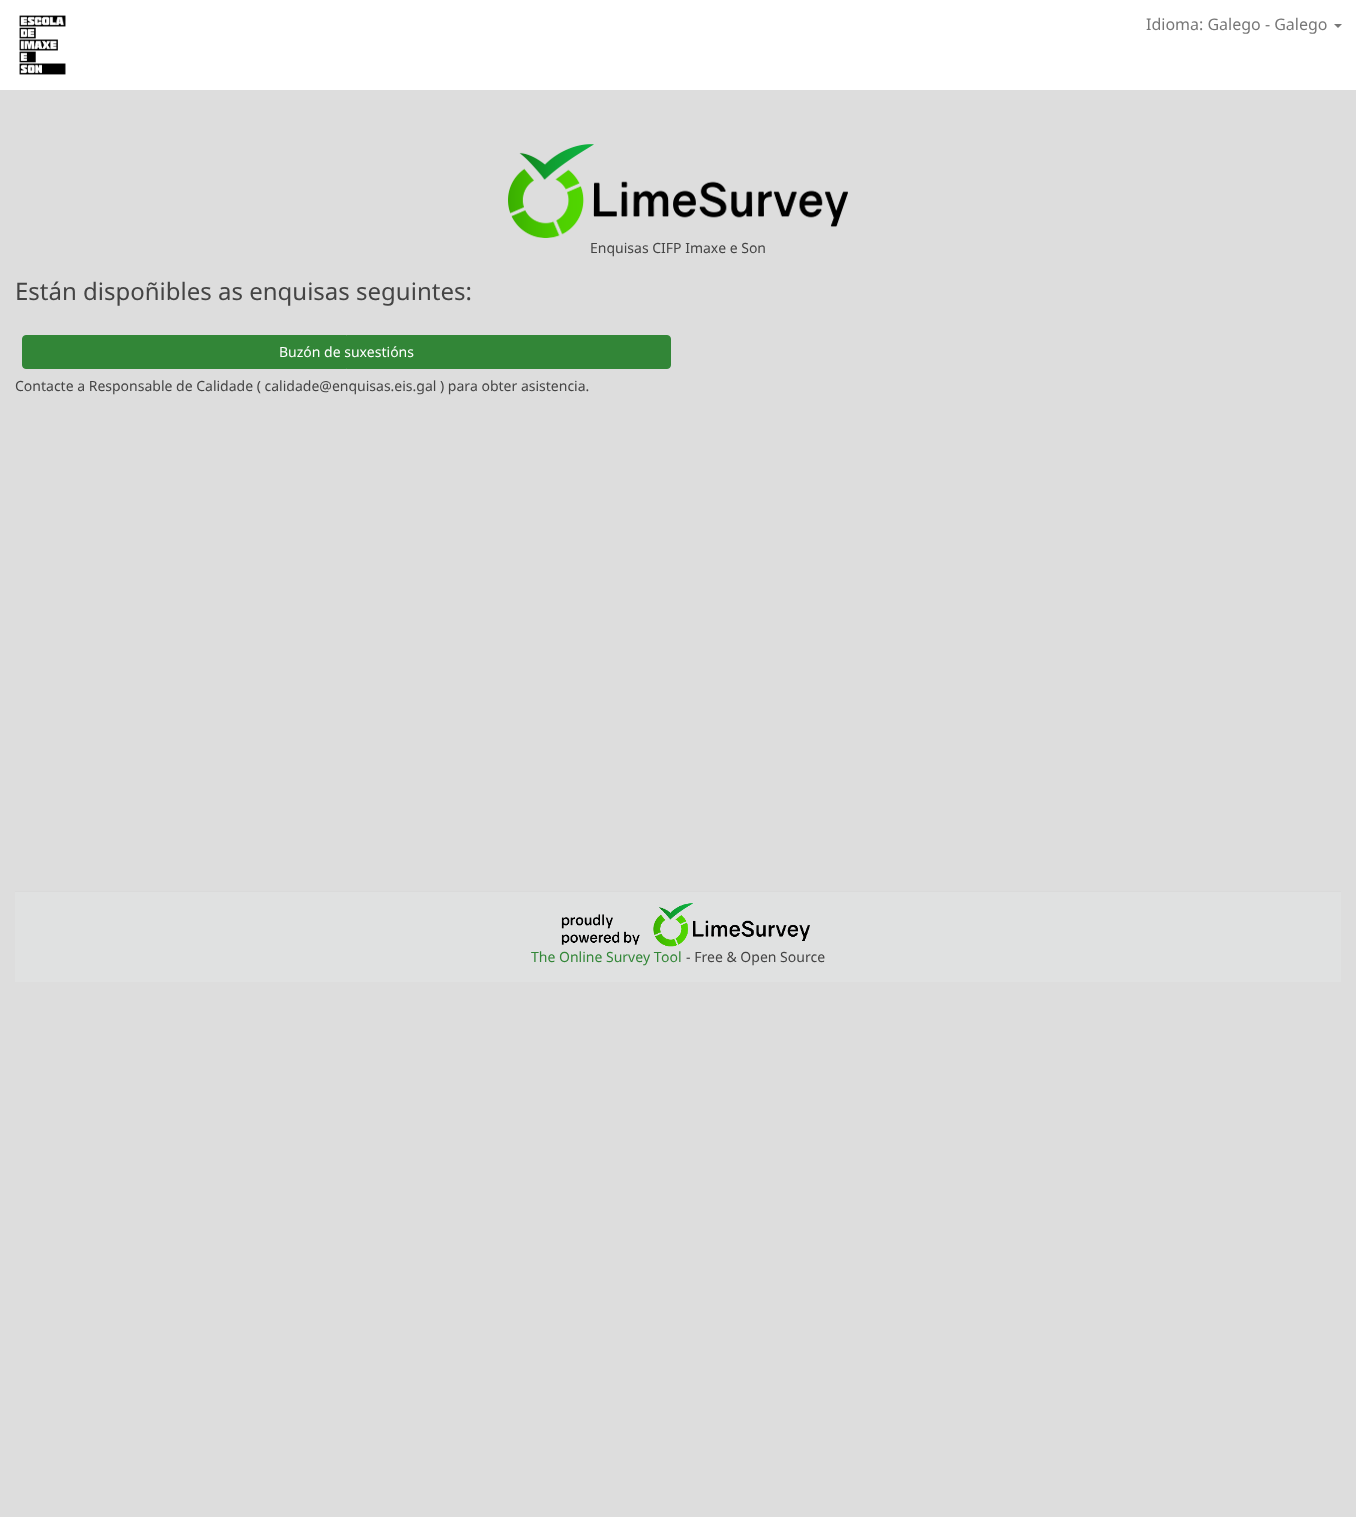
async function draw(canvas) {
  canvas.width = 1356;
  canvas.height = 1517;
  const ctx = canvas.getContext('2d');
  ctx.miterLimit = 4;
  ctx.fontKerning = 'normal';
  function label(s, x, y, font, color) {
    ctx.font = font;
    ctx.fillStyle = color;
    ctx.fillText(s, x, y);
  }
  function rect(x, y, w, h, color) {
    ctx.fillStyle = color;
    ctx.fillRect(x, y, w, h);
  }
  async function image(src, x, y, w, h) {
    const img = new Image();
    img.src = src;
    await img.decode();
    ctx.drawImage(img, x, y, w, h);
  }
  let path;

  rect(0, 0, 1356, 1517, '#ddd');
  rect(0, 0, 1356, 90, '#fff');
  await image('assets/img1.png', 19, 15, 47, 60);
  label('Idioma: Galego - Galego', 1146, 30, '16px Noto Sans', '#777');
  path = new Path2D('M1334 24H1342L1338 28Z');
  ctx.fill(path);
  await image('assets/img2.png', 508, 144, 340, 94);
  label('Enquisas CIFP Imaxe e Son', 590, 253, '14px Noto Sans', '#444');
  label('Están dispoñibles as enquisas seguintes:', 15, 300, '24px Noto Sans', '#444');
  ctx.fillStyle = '#328637';
  ctx.beginPath();
  ctx.roundRect(22.5, 335.5, 648, 33, 3.5);
  ctx.fill();
  ctx.strokeStyle = '#328637';
  ctx.stroke();
  label('Buzón de suxestións', 279, 357, '14px Noto Sans', '#fff');
  label('Contacte a Responsable de Calidade ( calidade@enquisas.eis.gal ) para obter asistencia.', 15, 391, '14px Noto Sans', '#444');
  rect(15, 892, 1326, 90, '#e0e1e1');
  rect(15, 891, 1326, 1, '#dadada');
  await image('assets/img3.png', 561, 903, 249, 44);
  label('The Online Survey Tool', 531, 962, '14px Noto Sans', '#328637');
  label('- Free & Open Source', 686, 962, '14px Noto Sans', '#444');
}

draw(document.querySelector('canvas'));
